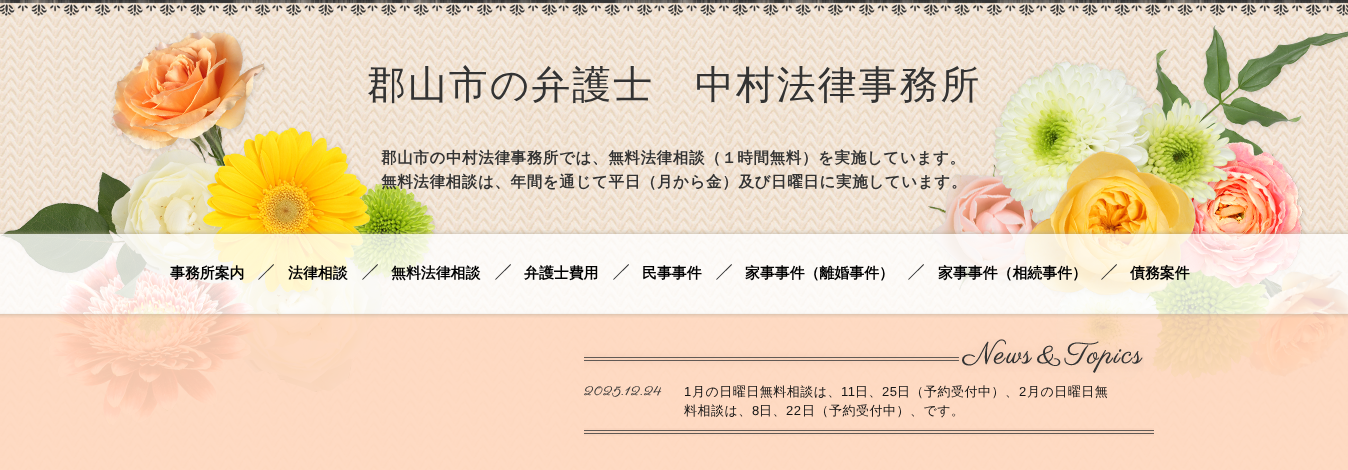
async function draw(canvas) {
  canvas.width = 1348;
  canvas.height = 470;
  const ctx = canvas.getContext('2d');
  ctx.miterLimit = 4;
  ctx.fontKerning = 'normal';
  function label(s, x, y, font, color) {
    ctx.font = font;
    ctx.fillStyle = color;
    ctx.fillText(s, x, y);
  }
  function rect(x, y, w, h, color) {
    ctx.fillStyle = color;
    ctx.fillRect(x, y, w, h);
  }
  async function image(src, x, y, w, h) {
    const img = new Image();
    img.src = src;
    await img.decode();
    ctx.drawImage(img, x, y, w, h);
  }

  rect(0, 0, 1348, 470, '#fff');
  await image('assets/img1.png', 0, 0, 1348, 470);
  await image('assets/img2.png', 0, 0, 1348, 16);
  await image('assets/img3.png', 0, 25, 1348, 400);
  ctx.letterSpacing = '2px';
  label('郡山市の弁護士　中村法律事務所', 367, 98, '500 38.9px WenQuanYi Zen Hei', '#333');
  ctx.letterSpacing = '0.6px';
  label('郡山市の中村法律事務所では、無料法律相談（１時間無料）を実施しています。', 381, 163, 'bold 15.55px WenQuanYi Zen Hei', '#333');
  label('無料法律相談は、年間を通じて平日（月から金）及び日曜日に実施しています。', 381, 187, 'bold 15.55px WenQuanYi Zen Hei', '#333');
  ctx.save();
  ctx.beginPath();
  ctx.rect(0, 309, 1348, 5);
  ctx.clip();
  ctx.fillStyle = '#d0c4b3';
  ctx.filter = 'blur(3px)';
  ctx.beginPath();
  ctx.rect(0, 315, 1348, 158);
  ctx.fill();
  ctx.filter = 'none';
  ctx.restore();
  rect(0, 314, 1348, 156, '#ffd8c0e6');
  await image('assets/img4.png', 0, 230, 1348, 88);
  await image('assets/img5.png', 258, 264, 16, 16);
  ctx.letterSpacing = '0px';
  label('事務所案内', 170, 278, 'bold 14.9px WenQuanYi Zen Hei', '#000');
  await image('assets/img6.png', 362, 264, 16, 16);
  label('法律相談', 288, 278, 'bold 14.9px WenQuanYi Zen Hei', '#000');
  await image('assets/img7.png', 495, 264, 16, 16);
  label('無料法律相談', 391, 278, 'bold 14.9px WenQuanYi Zen Hei', '#000');
  await image('assets/img8.png', 613, 264, 16, 16);
  label('弁護士費用', 524, 278, 'bold 14.9px WenQuanYi Zen Hei', '#000');
  await image('assets/img9.png', 716, 264, 16, 16);
  label('民事事件', 642, 278, 'bold 14.9px WenQuanYi Zen Hei', '#000');
  await image('assets/img10.png', 908, 264, 16, 16);
  label('家事事件（離婚事件）', 745, 278, 'bold 14.9px WenQuanYi Zen Hei', '#000');
  await image('assets/img11.png', 1101, 264, 16, 16);
  label('家事事件（相続事件）', 938, 278, 'bold 14.9px WenQuanYi Zen Hei', '#000');
  label('債務案件', 1130, 278, 'bold 14.9px WenQuanYi Zen Hei', '#000');
  await image('assets/img12.png', 584, 428, 570, 8);
  await image('assets/img13.png', 584, 339, 560, 34);
  ctx.letterSpacing = '1.25px';
  label('2025.12.24', 584, 395, 'bold 11.75px Parisienne', '#333');
  ctx.letterSpacing = '0.5px';
  label('1', 684, 396, '13px Liberation Sans', '#151515');
  label('月の日曜日無料相談は、', 692, 396, '500 13px WenQuanYi Zen Hei', '#151515');
  label('11', 841, 396, '13px Liberation Sans', '#151515');
  label('日、', 855, 396, '500 13px WenQuanYi Zen Hei', '#151515');
  label('25', 882, 396, '13px Liberation Sans', '#151515');
  label('日（予約受付中）、', 897, 396, '500 13px WenQuanYi Zen Hei', '#151515');
  label('2', 1019, 396, '13px Liberation Sans', '#151515');
  label('月の日曜日無', 1027, 396, '500 13px WenQuanYi Zen Hei', '#151515');
  label('料相談は、', 684, 415, '500 13px WenQuanYi Zen Hei', '#151515');
  label('8', 752, 415, '13px Liberation Sans', '#151515');
  label('日、', 759, 415, '500 13px WenQuanYi Zen Hei', '#151515');
  label('22', 786, 415, '13px Liberation Sans', '#151515');
  label('日（予約受付中）、です。', 802, 415, '500 13px WenQuanYi Zen Hei', '#151515');
}

draw(document.querySelector('canvas'));
